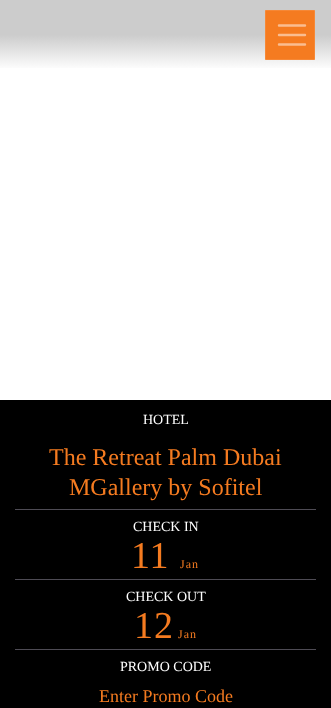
async function draw(canvas) {
  canvas.width = 331;
  canvas.height = 708;
  const ctx = canvas.getContext('2d');
  ctx.miterLimit = 4;
  ctx.fontKerning = 'normal';
  function label(s, x, y, font, color) {
    ctx.font = font;
    ctx.fillStyle = color;
    ctx.fillText(s, x, y);
  }
  function rect(x, y, w, h, color) {
    ctx.fillStyle = color;
    ctx.fillRect(x, y, w, h);
  }
  let gradient, path;

  rect(0, 0, 331, 708, '#fff');
  gradient = ctx.createLinearGradient(166, 0, 166, 70);
  gradient.addColorStop(0.5, '#ccc');
  gradient.addColorStop(1, '#fff');
  ctx.fillStyle = gradient;
  ctx.fillRect(0, 0, 331, 68);
  ctx.fillStyle = '#f57b20';
  ctx.beginPath();
  ctx.rect(265.5, 10.5, 49, 49);
  ctx.fill();
  ctx.strokeStyle = '#f68836';
  ctx.stroke();
  path = new Path2D('M279 25.5H305M279 35H305M279 44.5H305');
  ctx.strokeStyle = '#fabd90';
  ctx.lineWidth = 2.4;
  ctx.lineCap = 'round';
  ctx.stroke(path);
  rect(0, 400, 331, 308, '#000');
  rect(15, 509, 301, 1, '#4e4b54');
  label('HOTEL', 143, 424, '14px Liberation Serif', '#fff');
  label('The Retreat Palm Dubai', 49, 465, '24px Liberation Serif', '#f57b20');
  label('MGallery by Sofitel', 69, 495, '24px Liberation Serif', '#f57b20');
  rect(15, 579, 301, 1, '#4e4b54');
  label('CHECK IN', 133, 531, '14px Liberation Serif', '#fff');
  ctx.letterSpacing = '1px';
  label('11', 131, 568, '38px Liberation Serif', '#f57b20');
  label('Jan', 180, 568, '12px Liberation Serif', '#f57b20');
  rect(15, 649, 301, 1, '#4e4b54');
  ctx.letterSpacing = '0px';
  label('CHECK OUT', 126, 601, '14px Liberation Serif', '#fff');
  ctx.letterSpacing = '1px';
  label('12', 134, 638, '38px Liberation Serif', '#f57b20');
  label('Jan', 178, 638, '12px Liberation Serif', '#f57b20');
  ctx.letterSpacing = '0px';
  label('PROMO CODE', 120, 671, '14px Liberation Serif', '#fff');
  label('Enter Promo Code', 99, 702, '18px Liberation Serif', '#f57b20');
}

draw(document.querySelector('canvas'));
